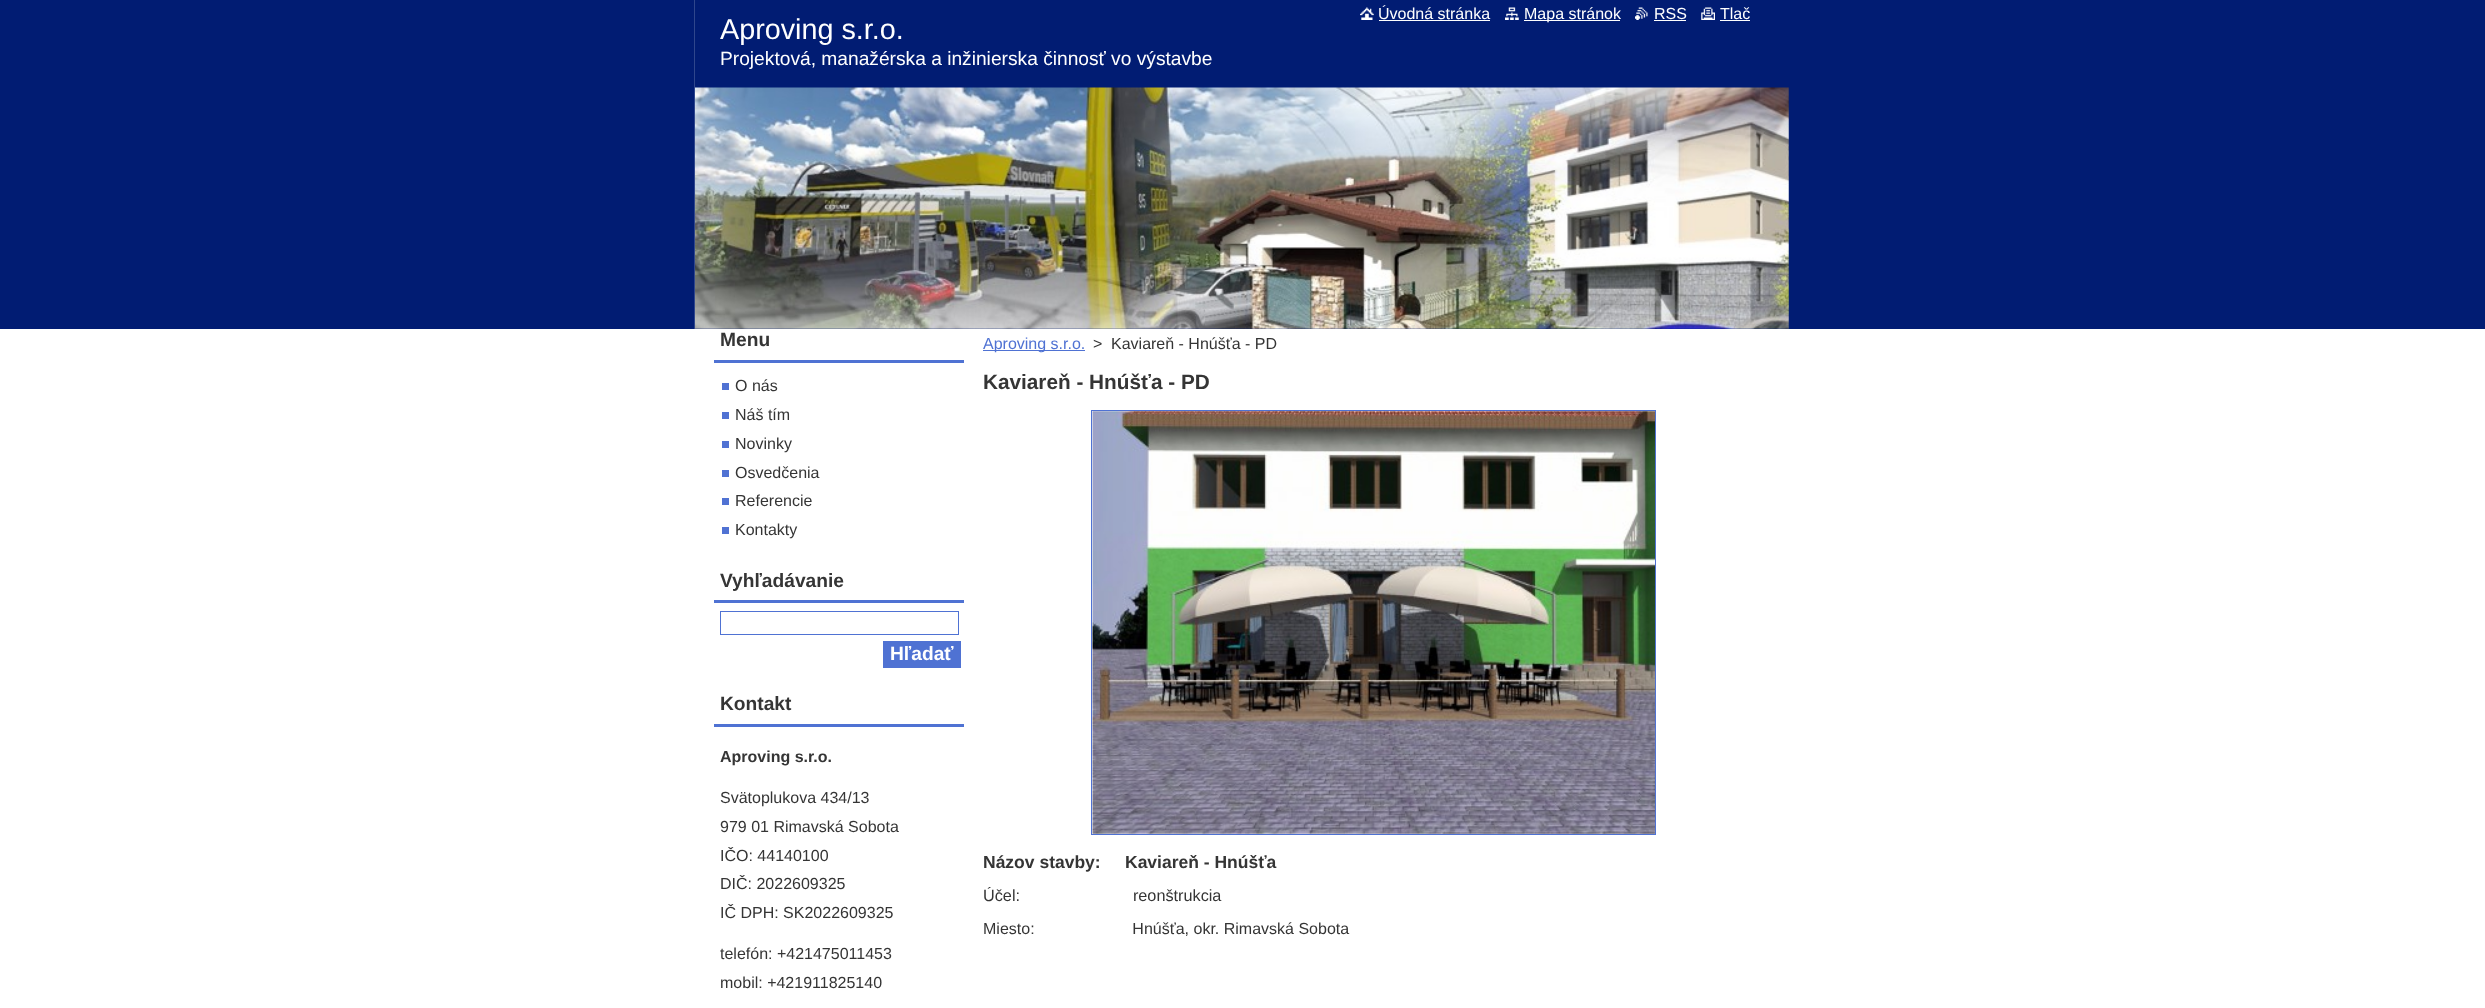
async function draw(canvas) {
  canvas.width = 2485;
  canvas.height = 1008;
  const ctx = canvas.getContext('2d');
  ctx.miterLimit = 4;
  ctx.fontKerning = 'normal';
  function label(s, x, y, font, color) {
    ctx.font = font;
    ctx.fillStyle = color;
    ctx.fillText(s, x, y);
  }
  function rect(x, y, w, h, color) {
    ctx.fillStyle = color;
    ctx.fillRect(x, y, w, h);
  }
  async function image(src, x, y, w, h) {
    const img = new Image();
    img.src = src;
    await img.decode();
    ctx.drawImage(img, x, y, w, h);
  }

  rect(0, 0, 2485, 1008, '#fff');
  rect(0, 0, 2485, 329, '#011c73');
  await image('assets/img1.png', 694, 0, 1, 329);
  await image('assets/img2.png', 694, 0, 1, 329);
  await image('assets/img3.png', 1360, 7, 14, 13);
  label('Úvodná stránka', 1378, 19, '16px Liberation Sans', '#fff');
  rect(1379, 20, 111, 1, '#fff');
  await image('assets/img4.png', 1505, 7, 14, 13);
  rect(1524, 20, 96, 1, '#fff');
  label('Mapa stránok', 1524, 19, '16px Liberation Sans', '#fff');
  await image('assets/img5.png', 1635, 7, 13, 13);
  label('RSS', 1654, 19, '16px Liberation Sans', '#fff');
  rect(1654, 20, 32, 1, '#fff');
  await image('assets/img6.png', 1701, 7, 14, 13);
  label('Tlač', 1720, 19, '16px Liberation Sans', '#fff');
  rect(1720, 20, 30, 1, '#fff');
  label('Aproving s.r.o.', 720, 39, '28.75px Liberation Sans', '#fff');
  label('Projektová, manažérska a inžinierska činnosť vo výstavbe', 720, 65, '19.2px Liberation Sans', '#fff');
  await image('assets/img7.png', 695, 87, 1094, 242);
  rect(714, 360, 250, 3, '#4f72d3');
  label('Menu', 720, 346, 'bold 19.2px Liberation Sans', '#353535');
  label('O nás', 735, 391, '16px Liberation Sans', '#353535');
  rect(722, 383, 7, 7, '#5072d3');
  label('Náš tím', 735, 420, '16px Liberation Sans', '#353535');
  rect(722, 412, 7, 7, '#5072d3');
  label('Novinky', 735, 449, '16px Liberation Sans', '#353535');
  rect(722, 441, 7, 7, '#5072d3');
  label('Osvedčenia', 735, 478, '16px Liberation Sans', '#353535');
  rect(722, 470, 7, 7, '#5072d3');
  label('Referencie', 735, 506, '16px Liberation Sans', '#353535');
  rect(722, 498, 7, 7, '#5072d3');
  label('Kontakty', 735, 535, '16px Liberation Sans', '#353535');
  rect(722, 527, 7, 7, '#5072d3');
  rect(714, 600, 250, 3, '#4f72d3');
  label('Vyhľadávanie', 720, 587, 'bold 19.2px Liberation Sans', '#353535');
  ctx.strokeStyle = '#4f72d3';
  ctx.strokeRect(720.5, 611.5, 238, 23);
  rect(883, 641, 78, 27, '#4f72d3');
  label('Hľadať', 890, 660, 'bold 19.2px Liberation Sans', '#fff');
  rect(714, 724, 250, 3, '#4f72d3');
  label('Kontakt', 720, 710, 'bold 19.2px Liberation Sans', '#353535');
  label('Aproving s.r.o.', 720, 762, 'bold 16px Liberation Sans', '#353535');
  label('Svätoplukova 434/13', 720, 803, '16px Liberation Sans', '#353535');
  label('979 01 Rimavská Sobota', 720, 832, '16px Liberation Sans', '#353535');
  label('IČO: 44140100', 720, 861, '16px Liberation Sans', '#353535');
  label('DIČ: 2022609325', 720, 889, '16px Liberation Sans', '#353535');
  label('IČ DPH: SK2022609325', 720, 918, '16px Liberation Sans', '#353535');
  label('telefón: +421475011453', 720, 959, '16px Liberation Sans', '#353535');
  label('mobil: +421911825140', 720, 988, '16px Liberation Sans', '#353535');
  rect(983, 350, 102, 1, '#4f72d3');
  label('Aproving s.r.o.', 983, 349, '16px Liberation Sans', '#4f72d3');
  label('>', 1093, 349, '16px Liberation Sans', '#353535');
  label('Kaviareň - Hnúšťa - PD', 1111, 349, '16px Liberation Sans', '#353535');
  label('Kaviareň - Hnúšťa - PD', 983, 389, 'bold 20.75px Liberation Sans', '#353535');
  ctx.strokeRect(1091.5, 410.5, 564, 424);
  await image('assets/img8.png', 1092, 411, 563, 423);
  label('Názov stavby:     Kaviareň - Hnúšťa', 983, 868, 'bold 17.5px Liberation Sans', '#353535');
  label('Účel:                         reonštrukcia', 983, 901, '16.25px Liberation Sans', '#353535');
  label('Miesto:                      Hnúšťa, okr. Rimavská Sobota', 983, 934, '16px Liberation Sans', '#353535');
}

draw(document.querySelector('canvas'));
